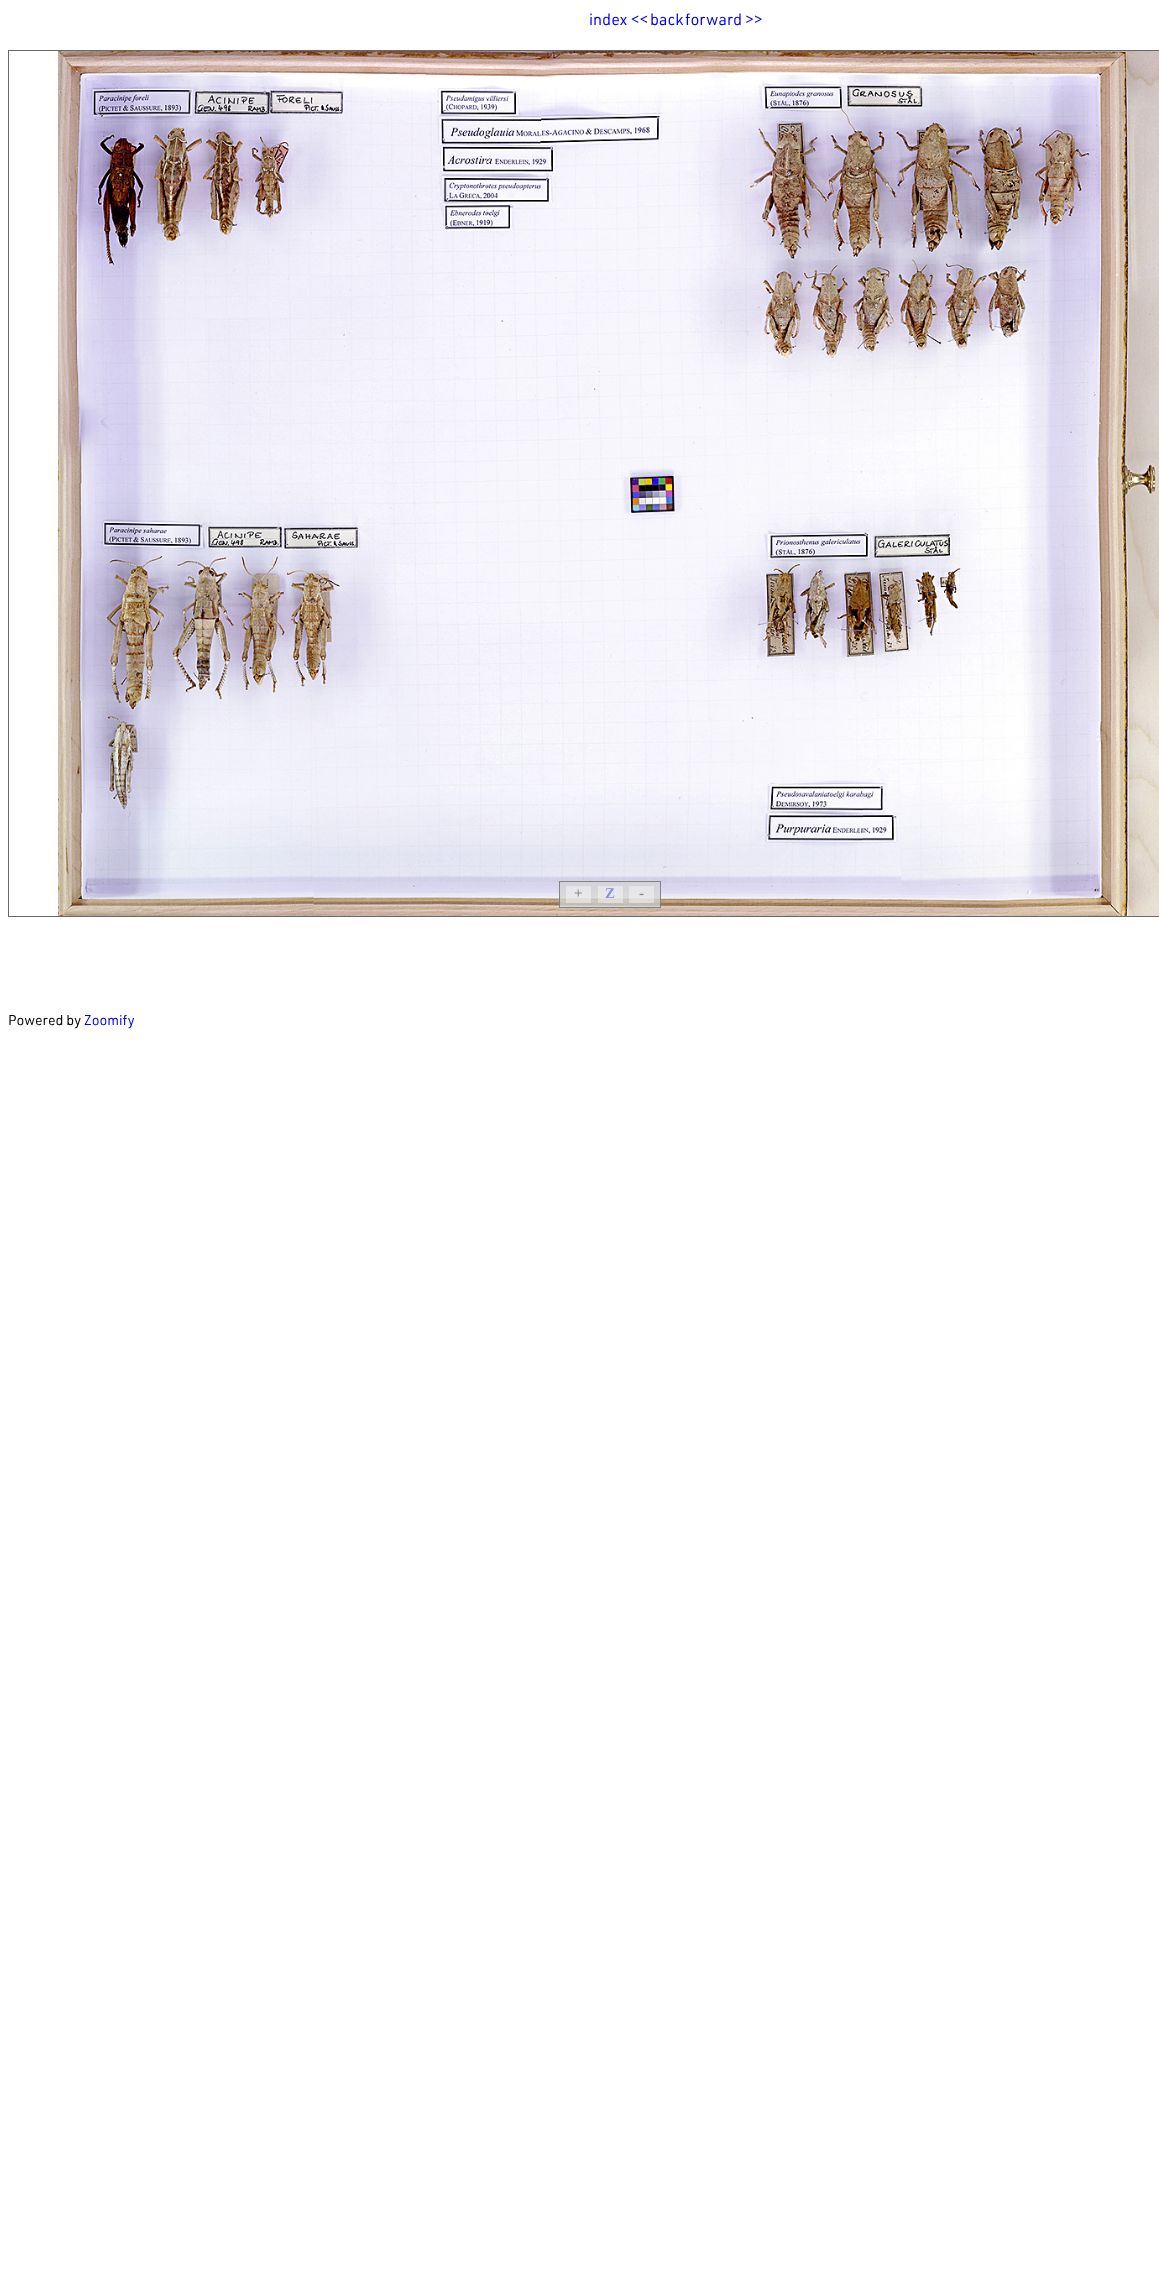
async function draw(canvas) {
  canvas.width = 1159;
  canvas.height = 2278;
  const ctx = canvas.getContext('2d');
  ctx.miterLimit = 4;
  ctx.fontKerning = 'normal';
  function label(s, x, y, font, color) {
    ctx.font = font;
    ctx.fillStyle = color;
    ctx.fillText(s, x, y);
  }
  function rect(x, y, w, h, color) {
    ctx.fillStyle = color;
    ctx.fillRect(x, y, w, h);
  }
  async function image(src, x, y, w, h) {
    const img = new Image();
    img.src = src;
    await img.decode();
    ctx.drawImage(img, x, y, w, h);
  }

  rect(0, 0, 1159, 2278, '#fff');
  label('index', 589, 25, '16px "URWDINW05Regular"', '#00e');
  label('<<', 631, 25, '16px "URWDINW05Regular"', '#00e');
  label('back', 650, 25, '16px "URWDINW05Regular"', '#00e');
  label('forward', 685, 25, '16px "URWDINW05Regular"', '#00e');
  label('>>', 745, 25, '16px "URWDINW05Regular"', '#00e');
  ctx.strokeStyle = '#696969';
  ctx.strokeRect(8.5, 50.5, 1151, 866);
  await image('assets/img1.png', 58, 51, 1101, 865);
  rect(559, 881, 102, 27, '#d3d3d3bf');
  ctx.strokeStyle = '#696969bf';
  ctx.strokeRect(559.5, 881.5, 101, 26);
  rect(566, 886, 25, 17, '#ffffff66');
  label('+', 574, 898, 'bold 15px Liberation Serif', '#8b8a8c');
  rect(598, 886, 25, 17, '#ffffff66');
  label('Z', 605, 898, 'bold 15px Liberation Serif', '#8b8bf2');
  rect(629, 886, 25, 17, '#ffffff66');
  label('-', 639, 898, 'bold 15px Liberation Serif', '#828184');
  label('Powered by', 8, 1025, '14px "URWDINW05Regular"', '#000');
  label('Zoomify', 84, 1025, '14px "URWDINW05Regular"', '#00e');
}

draw(document.querySelector('canvas'));
